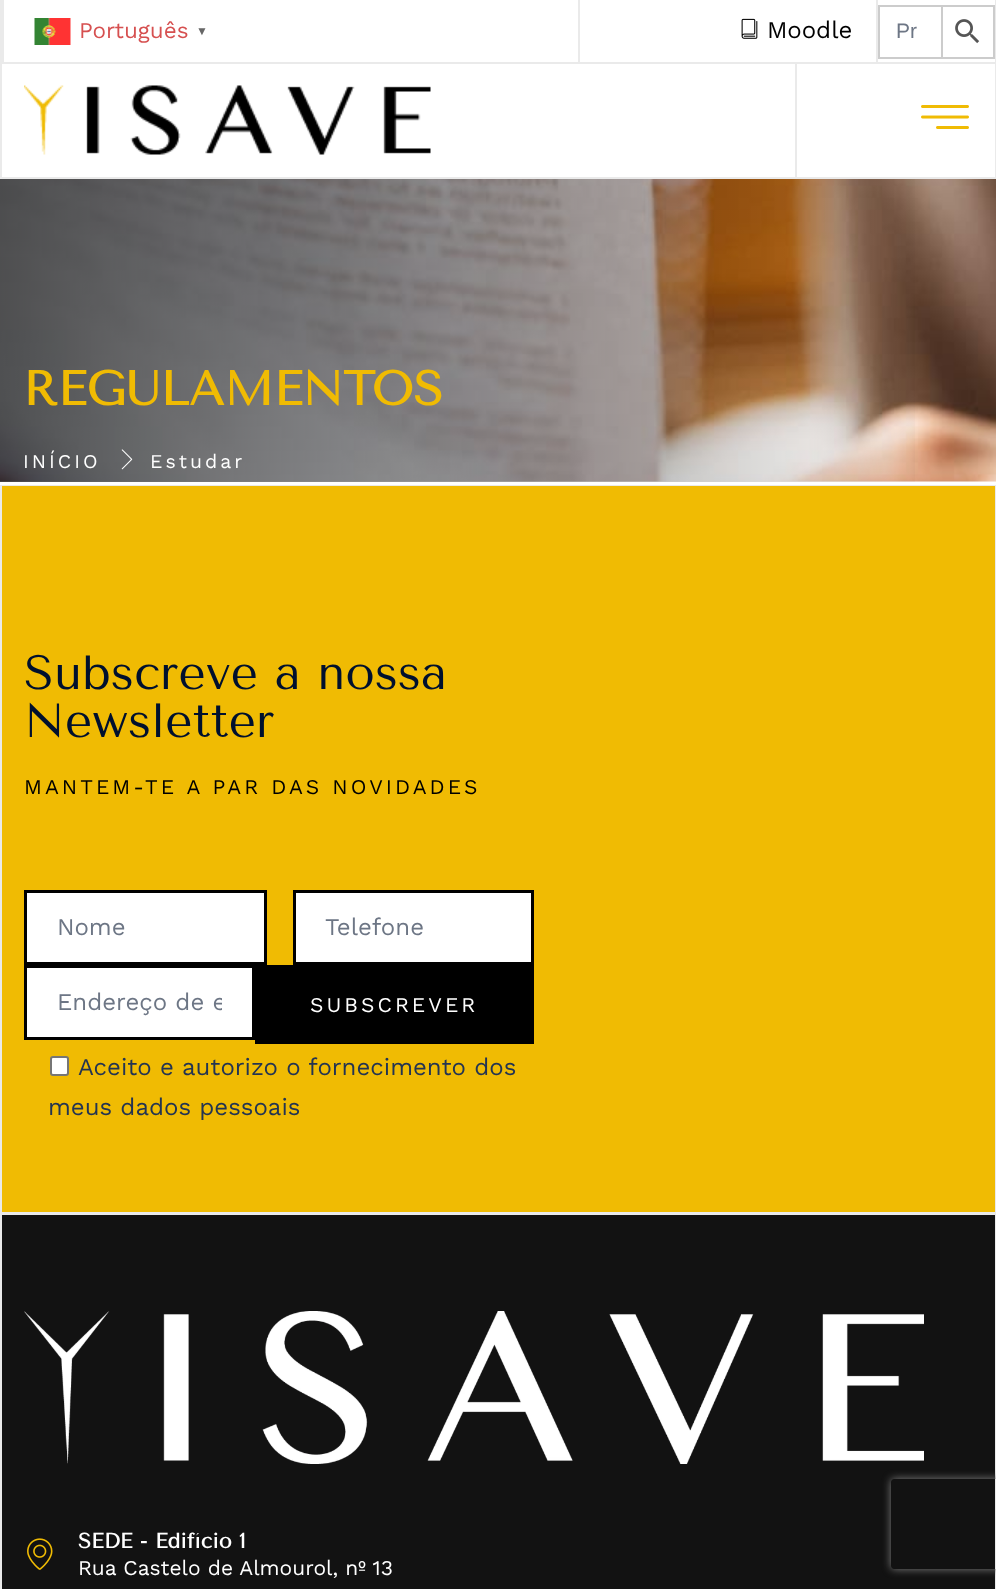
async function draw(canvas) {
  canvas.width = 996;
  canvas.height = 1589;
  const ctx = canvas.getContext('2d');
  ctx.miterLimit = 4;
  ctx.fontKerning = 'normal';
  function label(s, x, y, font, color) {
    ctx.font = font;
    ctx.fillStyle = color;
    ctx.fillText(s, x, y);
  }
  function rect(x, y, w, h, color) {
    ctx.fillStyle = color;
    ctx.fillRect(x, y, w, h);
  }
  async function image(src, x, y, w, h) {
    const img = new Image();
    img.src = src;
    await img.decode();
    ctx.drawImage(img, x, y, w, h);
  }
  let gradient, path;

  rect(0, 0, 996, 1589, '#fff');
  rect(0, 177, 996, 2, '#eaeaea');
  rect(995, 0, 1, 177, '#eaeaea');
  rect(0, 0, 2, 177, '#eaeaea');
  rect(2, 0, 2, 62, '#eaeaea');
  await image('assets/img1.png', 34, 18, 37, 27);
  label('Português', 79, 38, '22.5px Work Sans', '#d65050');
  label('▼', 196, 35, 'bold 12px Liberation Sans', '#666');
  rect(578, 0, 2, 62, '#eaeaea');
  await image('assets/img2.png', 741, 18, 17, 21);
  label('Moodle', 767, 38, '24px Work Sans', '#000');
  rect(876, 0, 2, 62, '#eaeaea');
  rect(878, 5, 63, 2, '#ccc');
  rect(878, 57, 63, 2, '#ccc');
  rect(878, 5, 2, 54, '#ccc');
  label('Pr', 896, 38, '21px Liberation Sans', '#6d7685');
  ctx.strokeStyle = '#ccc';
  ctx.lineWidth = 2;
  ctx.strokeRect(942, 6, 52, 52);
  await image('assets/img3.png', 955, 19, 25, 25);
  rect(2, 62, 993, 2, '#eaeaea');
  rect(795, 63, 2, 114, '#eaeaea');
  await image('assets/img4.png', 24, 85, 407, 70);
  await image('assets/img5.png', 921, 105, 48, 24);
  rect(0, 481, 996, 1, '#fafafa');
  await image('assets/img6.png', 0, 179, 996, 303);
  gradient = ctx.createLinearGradient(996, 330, 0, 330);
  gradient.addColorStop(0.05, '#00000000');
  gradient.addColorStop(1, '#000000a6');
  ctx.fillStyle = gradient;
  ctx.fillRect(0, 179, 915, 303);
  label('REGULAMENTOS', 23, 405, 'bold 48px Tenor Sans', '#f0bb03');
  ctx.letterSpacing = '3px';
  label('INÍCIO', 23, 468, '19.5px Work Sans', '#fff');
  await image('assets/img7.png', 121, 449, 12, 21);
  label('Estudar', 150, 468, '19.5px Work Sans', '#fff');
  rect(0, 485, 996, 1, '#eaeaea');
  rect(995, 486, 1, 1103, '#eaeaea');
  rect(0, 486, 2, 1103, '#eaeaea');
  rect(2, 486, 993, 726, '#f0bb03');
  rect(2, 1212, 993, 3, '#eaeaea');
  ctx.letterSpacing = '0px';
  label('Subscreve a nossa', 24, 689, '48px Tenor Sans', '#00102e');
  label('Newsletter', 24, 737, '48px Tenor Sans', '#00102e');
  ctx.letterSpacing = '3px';
  label('MANTEM-TE A PAR DAS NOVIDADES', 24, 794, '21px Work Sans', '#000');
  ctx.fillStyle = '#fff';
  ctx.beginPath();
  ctx.rect(25.5, 891.5, 240, 72);
  ctx.fill();
  ctx.strokeStyle = '#000';
  ctx.lineWidth = 3;
  ctx.stroke();
  ctx.letterSpacing = '0px';
  label('Nome', 57, 935, '24px Work Sans', '#6d7685');
  ctx.fillStyle = '#fff';
  ctx.beginPath();
  ctx.rect(294.5, 891.5, 238, 72);
  ctx.fill();
  ctx.stroke();
  label('Telefone', 325, 935, '24px Work Sans', '#6d7685');
  ctx.fillStyle = '#fff';
  ctx.beginPath();
  ctx.rect(25.5, 966.5, 228, 72);
  ctx.fill();
  ctx.stroke();
  ctx.save();
  ctx.beginPath();
  ctx.rect(57, 987, 165, 29);
  ctx.clip();
  label('Endereço de e', 57, 1010, '24px Work Sans', '#6d7685');
  ctx.restore();
  rect(255, 965, 279, 79, '#000');
  ctx.letterSpacing = '3px';
  label('SUBSCREVER', 310, 1012, '21px Work Sans', '#fff');
  ctx.beginPath();
  ctx.roundRect(51, 1057, 17, 18, 2);
  ctx.fill();
  ctx.strokeStyle = '#767676';
  ctx.lineWidth = 2;
  ctx.stroke();
  ctx.letterSpacing = '0px';
  label('Aceito e autorizo o fornecimento dos', 78, 1075, '24px Work Sans', '#233452');
  label('meus dados pessoais', 48, 1115, '24px Work Sans', '#233452');
  rect(2, 1215, 993, 374, '#121212');
  await image('assets/img8.png', 24, 1311, 900, 153);
  await image('assets/img9.png', 27, 1538, 26, 32);
  label('SEDE - Edifício 1', 78, 1548, 'bold 21px Tenor Sans', '#fff');
  label('Rua Castelo de Almourol, nº 13', 78, 1575, '21px Work Sans', '#fff');
  ctx.save();
  path = new Path2D('M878 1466H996V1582H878ZM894 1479H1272C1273.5 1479 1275 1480.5 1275 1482V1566C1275 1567.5 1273.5 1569 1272 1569H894C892.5 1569 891 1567.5 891 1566V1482C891 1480.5 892.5 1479 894 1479Z');
  ctx.clip(path, 'evenodd');
  ctx.fillStyle = '#808080';
  ctx.filter = 'blur(4px)';
  ctx.beginPath();
  ctx.roundRect(891, 1479, 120, 90, 3);
  ctx.fill();
  ctx.filter = 'none';
  ctx.restore();
}

draw(document.querySelector('canvas'));
